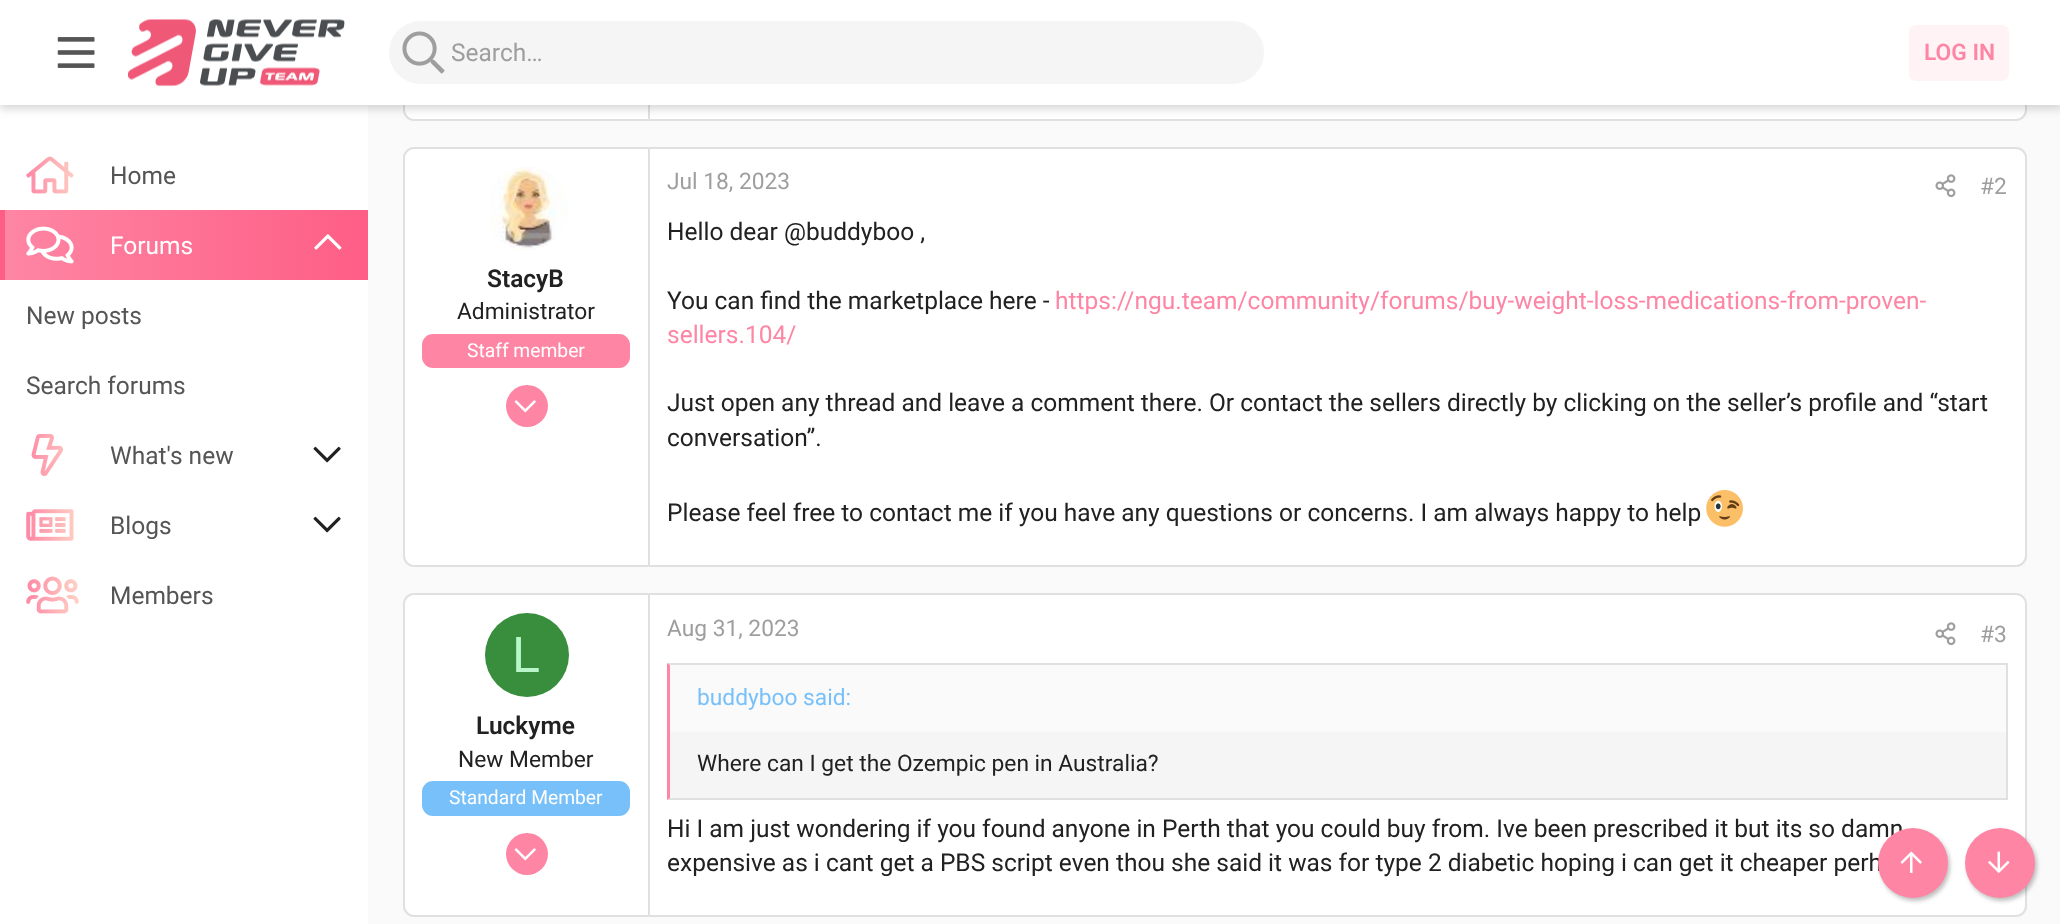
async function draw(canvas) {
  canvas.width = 2060;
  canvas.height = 924;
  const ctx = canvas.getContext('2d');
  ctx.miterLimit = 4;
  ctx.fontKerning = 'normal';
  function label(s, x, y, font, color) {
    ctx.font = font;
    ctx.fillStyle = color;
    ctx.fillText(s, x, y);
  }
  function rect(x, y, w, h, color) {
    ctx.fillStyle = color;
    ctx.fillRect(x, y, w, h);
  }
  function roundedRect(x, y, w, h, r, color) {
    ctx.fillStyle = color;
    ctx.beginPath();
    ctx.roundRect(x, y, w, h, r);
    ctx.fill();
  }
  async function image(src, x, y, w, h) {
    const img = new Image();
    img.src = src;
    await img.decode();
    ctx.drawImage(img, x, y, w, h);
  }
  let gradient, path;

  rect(0, 0, 2060, 924, '#fafafa');
  rect(0, 105, 368, 819, '#fff');
  ctx.beginPath();
  ctx.roundRect(404, -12, 1622, 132, 10);
  ctx.fill();
  ctx.strokeStyle = '#e0e0e0';
  ctx.lineWidth = 2;
  ctx.stroke();
  rect(648, 105, 2, 14, '#e0e0e0');
  ctx.fillStyle = '#42424236';
  ctx.filter = 'blur(4.5px)';
  ctx.beginPath();
  ctx.rect(0, 4, 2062, 105);
  ctx.fill();
  ctx.filter = 'none';
  rect(0, 0, 2060, 105, '#fff');
  await image('assets/img1.png', 57, 37, 38, 31);
  await image('assets/img2.png', 128, 19, 217, 68);
  roundedRect(389, 21, 875, 63, 31.5, '#f5f5f5');
  await image('assets/img3.png', 402, 31, 43, 43);
  label('Search…', 451, 61, '24.5px Roboto', '#9e9e9e');
  roundedRect(1909, 25, 100, 56, 7, '#fff3f6');
  label('LOG IN', 1924, 60, '600 22.75px Roboto', '#fe86a4');
  await image('assets/img4.png', 26, 156, 48, 38);
  label('Home', 110, 184, '24.5px Roboto', '#555');
  gradient = ctx.createLinearGradient(0, 245, 368, 245);
  gradient.addColorStop(0, '#fe86a4');
  gradient.addColorStop(1, '#fe5e86');
  ctx.fillStyle = gradient;
  ctx.fillRect(5, 210, 363, 70);
  rect(0, 210, 5, 70, '#fe5e86');
  await image('assets/img5.png', 26, 226, 48, 38);
  label('Forums', 110, 254, '24.5px Roboto', '#fff');
  await image('assets/img6.png', 314, 234, 28, 16);
  label('New posts', 26, 324, '24.5px Roboto', '#555');
  label('Search forums', 26, 394, '24.5px Roboto', '#555');
  await image('assets/img7.png', 31, 434, 33, 42);
  label('What\'s new', 110, 464, '24.5px Roboto', '#555');
  await image('assets/img8.png', 313, 446, 28, 17);
  await image('assets/img9.png', 26, 509, 48, 32);
  label('Blogs', 110, 534, '24.5px Roboto', '#555');
  await image('assets/img8.png', 313, 516, 28, 17);
  await image('assets/img10.png', 26, 576, 53, 38);
  label('Members', 110, 604, '24.5px Roboto', '#555');
  ctx.fillStyle = '#fff';
  ctx.beginPath();
  ctx.roundRect(404, 148, 1622, 418, 10);
  ctx.fill();
  ctx.stroke();
  rect(648, 149, 2, 416, '#e0e0e0');
  await image('assets/img11.png', 490, 167, 78, 83);
  label('StacyB', 487, 287, '600 24.5px Roboto', '#212121');
  label('Administrator', 457, 319, '22.75px Roboto', '#212121');
  ctx.fillStyle = '#fe86a4';
  ctx.beginPath();
  ctx.roundRect(423, 335, 206, 32, 10);
  ctx.fill();
  ctx.strokeStyle = '#fe86a4';
  ctx.stroke();
  label('Staff member', 467, 357, '19.25px Roboto', '#fff');
  ctx.fillStyle = '#fe86a4';
  ctx.beginPath();
  ctx.arc(527, 406, 21, 0, 2 * Math.PI);
  ctx.fill();
  await image('assets/img12.png', 514, 400, 22, 13);
  label('Jul 18, 2023', 667, 189, '22.75px Roboto', '#9e9e9e');
  await image('assets/img13.png', 1935, 174, 21, 24);
  label('#2', 1980, 194, '22.75px Roboto', '#9e9e9e');
  label('Hello dear @buddyboo ,', 667, 240, '24.5px Roboto', '#212121');
  label('You can find the marketplace here -', 667, 309, '24.5px Roboto', '#212121');
  label('https://ngu.team/community/forums/buy-weight-loss-medications-from-proven-', 1055, 309, '24.5px Roboto', '#fe86a4');
  label('sellers.104/', 667, 343, '24.5px Roboto', '#fe86a4');
  label('Just open any thread and leave a comment there. Or contact the sellers directly by clicking on the seller’s profile and “start', 667, 411, '24.5px Roboto', '#212121');
  label('conversation”.', 667, 446, '24.5px Roboto', '#212121');
  label('Please feel free to contact me if you have any questions or concerns. I am always happy to help', 667, 521, '24.5px Roboto', '#212121');
  await image('assets/img14.png', 1706, 490, 37, 37);
  ctx.fillStyle = '#fff';
  ctx.beginPath();
  ctx.roundRect(404, 594, 1622, 322, 10);
  ctx.fill();
  ctx.strokeStyle = '#e0e0e0';
  ctx.stroke();
  rect(648, 595, 2, 320, '#e0e0e0');
  ctx.fillStyle = '#388e3c';
  ctx.beginPath();
  ctx.arc(527, 655, 42, 0, 2 * Math.PI);
  ctx.fill();
  label('L', 512, 672, '51px Liberation Sans', '#b9f6ca');
  label('Luckyme', 476, 734, '600 24.5px Roboto', '#212121');
  label('New Member', 458, 767, '22.75px Roboto', '#212121');
  ctx.fillStyle = '#78c0f9';
  ctx.beginPath();
  ctx.roundRect(423, 782, 206, 33, 10);
  ctx.fill();
  ctx.strokeStyle = '#78c0f9';
  ctx.stroke();
  label('Standard Member', 449, 804, '19.25px Roboto', '#fff');
  ctx.fillStyle = '#fe86a4';
  ctx.beginPath();
  ctx.arc(527, 854, 21, 0, 2 * Math.PI);
  ctx.fill();
  await image('assets/img12.png', 514, 848, 22, 13);
  label('Aug 31, 2023', 667, 636, '22.75px Roboto', '#9e9e9e');
  await image('assets/img13.png', 1935, 622, 21, 24);
  label('#3', 1980, 642, '22.75px Roboto', '#9e9e9e');
  rect(670, 732, 1336, 66, '#f5f5f5');
  ctx.fillStyle = '#e0e0e0';
  path = new Path2D('M667 663H2007L2006 665H670Z');
  ctx.fill(path);
  rect(2006, 663, 2, 137, '#e0e0e0');
  path = new Path2D('M2007 800H667L670 798H2006Z');
  ctx.fill(path);
  ctx.fillStyle = '#fe86a4';
  path = new Path2D('M667 800V663L670 665V798Z');
  ctx.fill(path);
  rect(670, 665, 1336, 67, '#fafafa');
  label('buddyboo said:', 697, 705, '22.75px Roboto', '#78c0f9');
  label('Where can I get the Ozempic pen in Australia?', 697, 771, '22.75px Roboto', '#212121');
  label('Hi I am just wondering if you found anyone in Perth that you could buy from. Ive been prescribed it but its so damn', 667, 837, '24.5px Roboto', '#212121');
  label('expensive as i cant get a PBS script even thou she said it was for type 2 diabetic hoping i can get it cheaper perh', 667, 871, '24.5px Roboto', '#212121');
  ctx.fillStyle = '#00000040';
  ctx.filter = 'blur(2px)';
  ctx.beginPath();
  ctx.roundRect(1880, 831, 70, 70, 35);
  ctx.fill();
  ctx.filter = 'none';
  ctx.fillStyle = '#fe86a4';
  ctx.beginPath();
  ctx.arc(1913, 863, 35, 0, 2 * Math.PI);
  ctx.fill();
  await image('assets/img15.png', 1900, 851, 22, 22);
  ctx.fillStyle = '#00000040';
  ctx.filter = 'blur(2px)';
  ctx.beginPath();
  ctx.roundRect(1967, 831, 70, 70, 35);
  ctx.fill();
  ctx.filter = 'none';
  ctx.fillStyle = '#fe86a4';
  ctx.beginPath();
  ctx.arc(2000, 863, 35, 0, 2 * Math.PI);
  ctx.fill();
  await image('assets/img16.png', 1988, 851, 22, 22);
}

draw(document.querySelector('canvas'));
